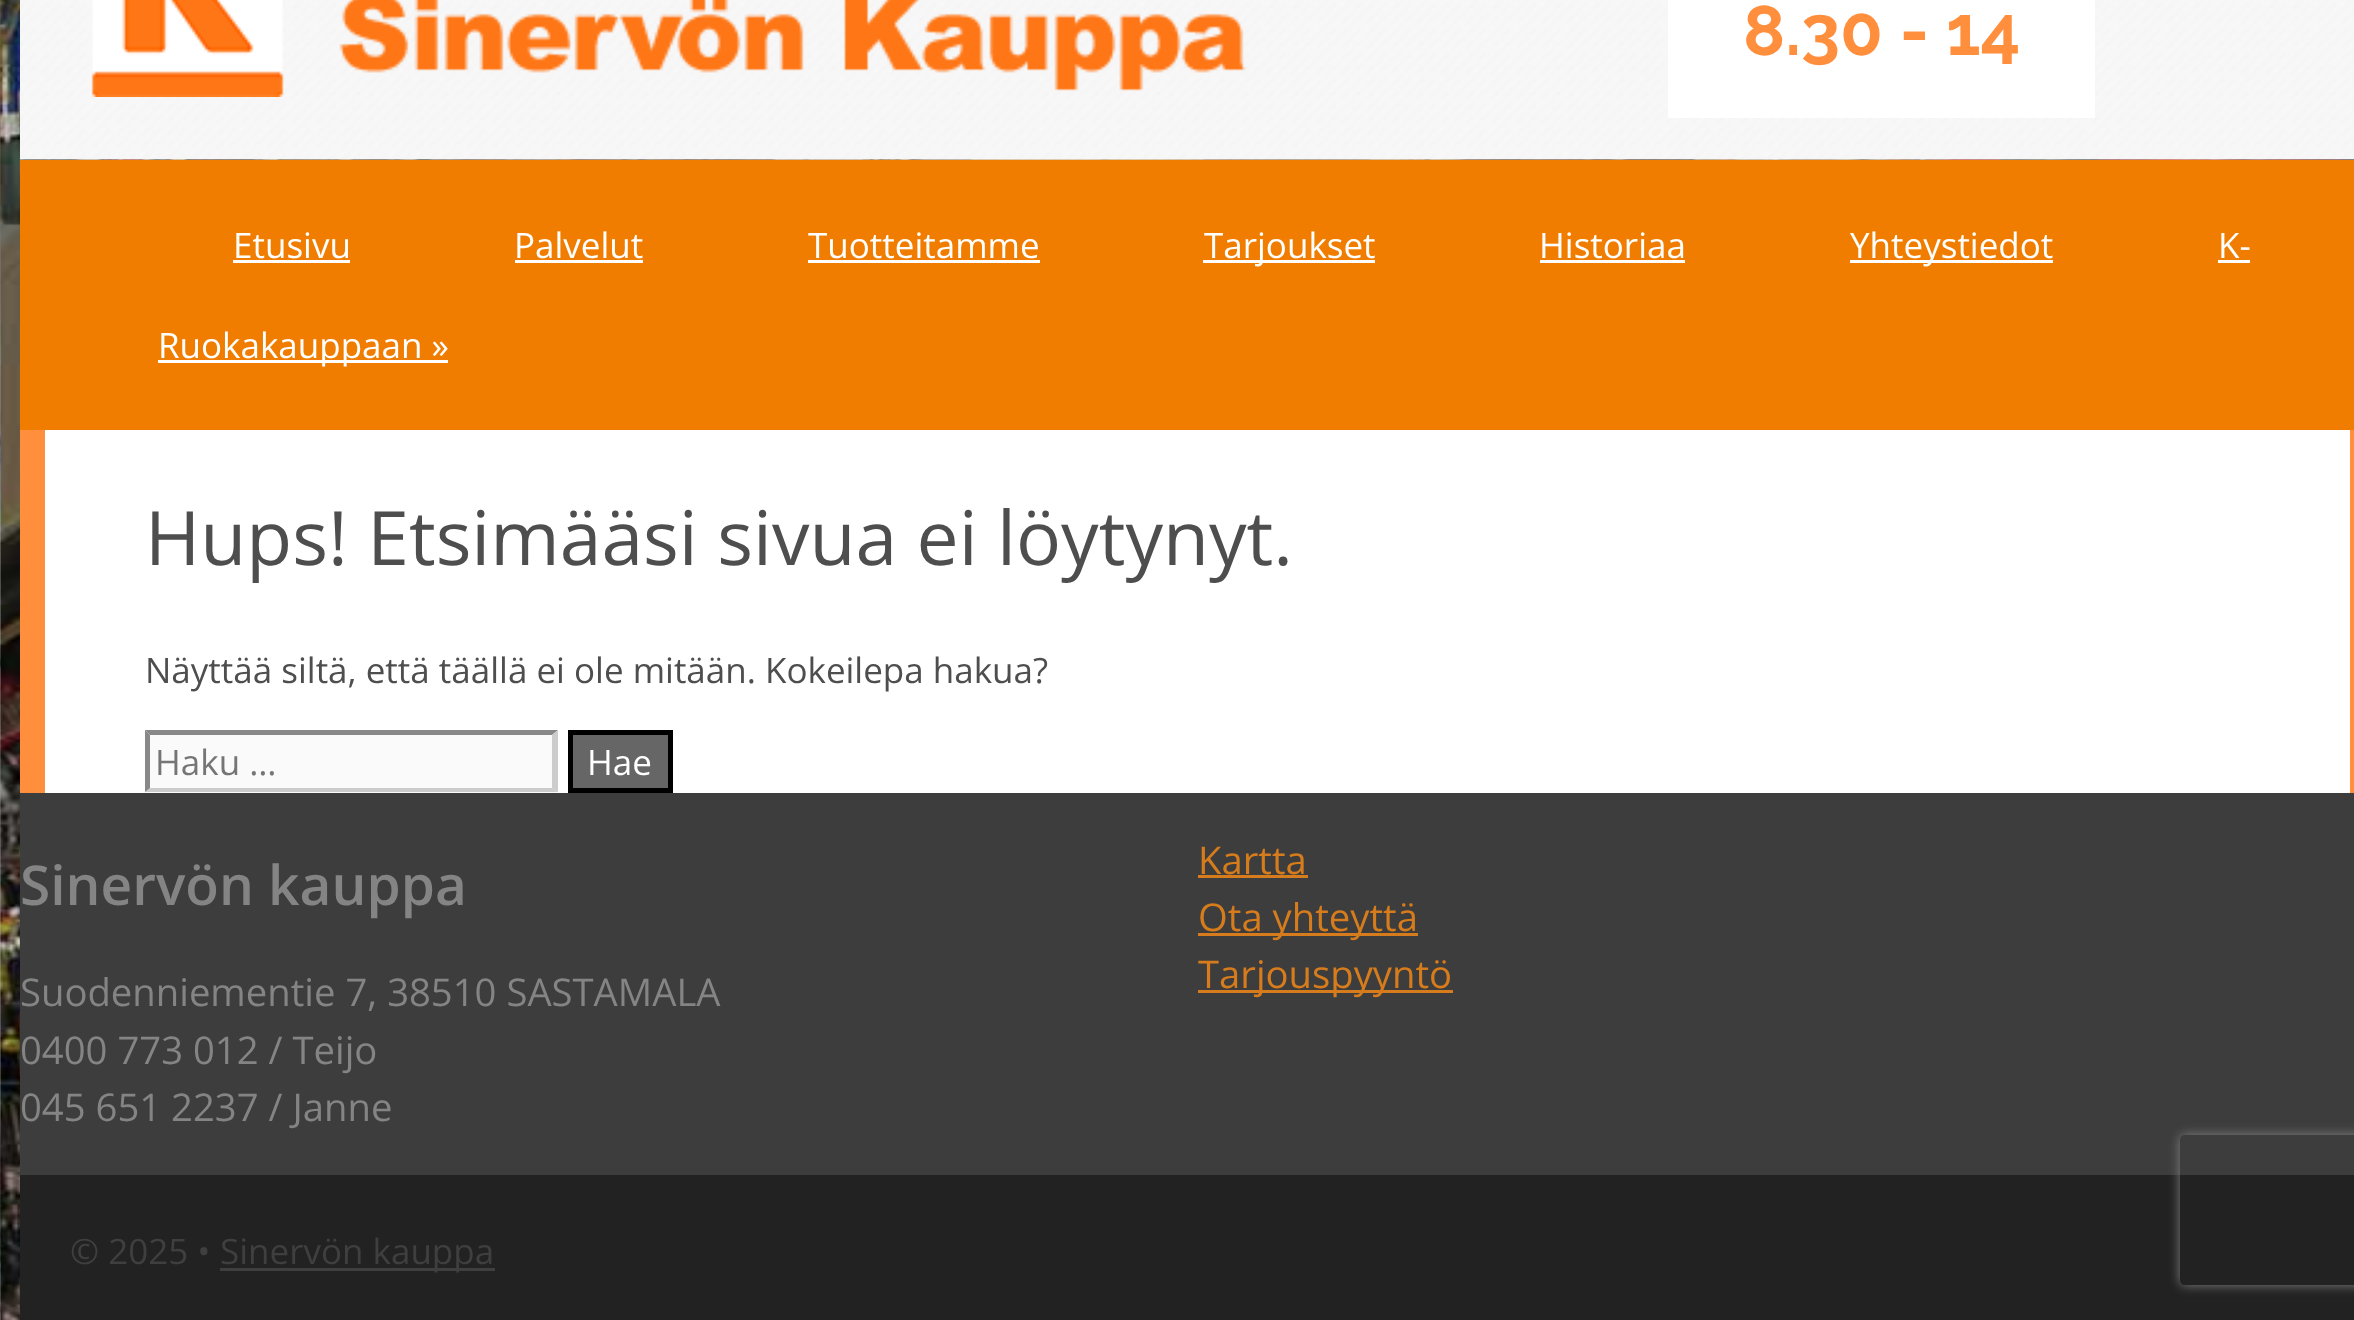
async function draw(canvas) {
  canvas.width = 2354;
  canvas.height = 1320;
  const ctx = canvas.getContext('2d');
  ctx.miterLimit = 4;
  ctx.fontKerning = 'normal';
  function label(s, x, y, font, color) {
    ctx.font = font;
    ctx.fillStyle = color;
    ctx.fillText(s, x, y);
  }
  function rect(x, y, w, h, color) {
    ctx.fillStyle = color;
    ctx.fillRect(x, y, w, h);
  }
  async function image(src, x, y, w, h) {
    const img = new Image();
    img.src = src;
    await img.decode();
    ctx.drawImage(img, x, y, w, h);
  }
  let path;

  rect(0, 0, 2354, 1320, '#fff');
  await image('assets/img1.png', 0, 0, 2354, 1320);
  await image('assets/img2.png', 20, 0, 2334, 160);
  await image('assets/img3.png', 91, 0, 1155, 97);
  rect(1668, 0, 427, 118, '#fff');
  label('8.30 - 14', 1743, 55, '100 70px Raleway', '#ff8f3d');
  rect(20, 160, 2334, 270, '#f07d00');
  label('Etusivu', 233, 258, '35px Open Sans', '#fff');
  rect(233, 260, 117, 3, '#fff');
  label('Palvelut', 514, 258, '35px Open Sans', '#fff');
  rect(515, 260, 128, 3, '#fff');
  label('Tuotteitamme', 808, 258, '35px Open Sans', '#fff');
  rect(808, 260, 232, 3, '#fff');
  rect(1203, 260, 172, 3, '#fff');
  label('Tarjoukset', 1204, 258, '35px Open Sans', '#fff');
  label('Historiaa', 1539, 258, '35px Open Sans', '#fff');
  rect(1540, 260, 145, 3, '#fff');
  rect(1850, 260, 203, 3, '#fff');
  label('Yhteystiedot', 1850, 258, '35px Open Sans', '#fff');
  label('K-', 2218, 258, '35px Open Sans', '#fff');
  rect(2218, 260, 32, 3, '#fff');
  rect(158, 360, 290, 3, '#fff');
  label('Ruokakauppaan »', 158, 358, '35px Open Sans', '#fff');
  rect(45, 430, 2305, 363, '#fff');
  rect(2350, 430, 4, 363, '#ff8f3d');
  rect(20, 430, 25, 363, '#ff8f3d');
  label('Hups! Etsimääsi sivua ei löytynyt.', 145, 565, '75px Open Sans', '#4e4e4e');
  label('Näyttää siltä, että täällä ei ole mitään. Kokeilepa hakua?', 145, 683, '35px Open Sans', '#4e4e4e');
  rect(145, 730, 413, 63, '#fafafa');
  ctx.fillStyle = '#888';
  path = new Path2D('M145 730H558L552 735H150Z');
  ctx.fill(path);
  ctx.fillStyle = '#ccc';
  path = new Path2D('M558 730V792L552 788V735Z');
  ctx.fill(path);
  path = new Path2D('M558 792H145L150 788H552Z');
  ctx.fill(path);
  ctx.fillStyle = '#888';
  path = new Path2D('M145 792V730L150 735V788Z');
  ctx.fill(path);
  label('Haku …', 155, 775, '35px Open Sans', '#757575');
  ctx.fillStyle = '#666';
  ctx.beginPath();
  ctx.rect(570.5, 732.5, 100, 58);
  ctx.fill();
  ctx.strokeStyle = '#000';
  ctx.lineWidth = 5;
  ctx.stroke();
  label('Hae', 587, 775, '35px Open Sans', '#fff');
  rect(20, 793, 2334, 382, '#3d3d3d');
  label('Sinervön kauppa', 20, 905, '600 55px Open Sans', '#848484');
  label('Suodenniementie 7, 38510 SASTAMALA', 20, 1006, '38.25px Open Sans', '#848484');
  label('0400 773 012 / Teijo', 20, 1064, '38.25px Open Sans', '#848484');
  label('045 651 2237 / Janne', 20, 1121, '38.25px Open Sans', '#848484');
  label('Kartta', 1198, 874, '38.25px Open Sans', '#d67c1c');
  rect(1198, 875, 110, 3, '#d67c1c');
  rect(1198, 933, 220, 3, '#d67c1c');
  label('Ota yhteyttä', 1198, 931, '38.25px Open Sans', '#d67c1c');
  rect(1198, 990, 255, 3, '#d67c1c');
  label('Tarjouspyyntö', 1198, 988, '38.25px Open Sans', '#d67c1c');
  rect(20, 1175, 2334, 145, '#222');
  label('© 2025 •', 70, 1264, '35px Open Sans', '#3f3f3f');
  rect(220, 1268, 275, 3, '#3f3f3f');
  label('Sinervön kauppa', 220, 1264, '35px Open Sans', '#3f3f3f');
  ctx.save();
  path = new Path2D('M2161 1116H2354V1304H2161ZM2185 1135H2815C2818 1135 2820 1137 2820 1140V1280C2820 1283 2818 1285 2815 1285H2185C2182 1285 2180 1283 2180 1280V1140C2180 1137 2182 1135 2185 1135Z');
  ctx.clip(path, 'evenodd');
  ctx.fillStyle = '#808080';
  ctx.filter = 'blur(6px)';
  ctx.beginPath();
  ctx.roundRect(2180, 1135, 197, 150, 5);
  ctx.fill();
  ctx.filter = 'none';
  ctx.restore();
}

draw(document.querySelector('canvas'));
